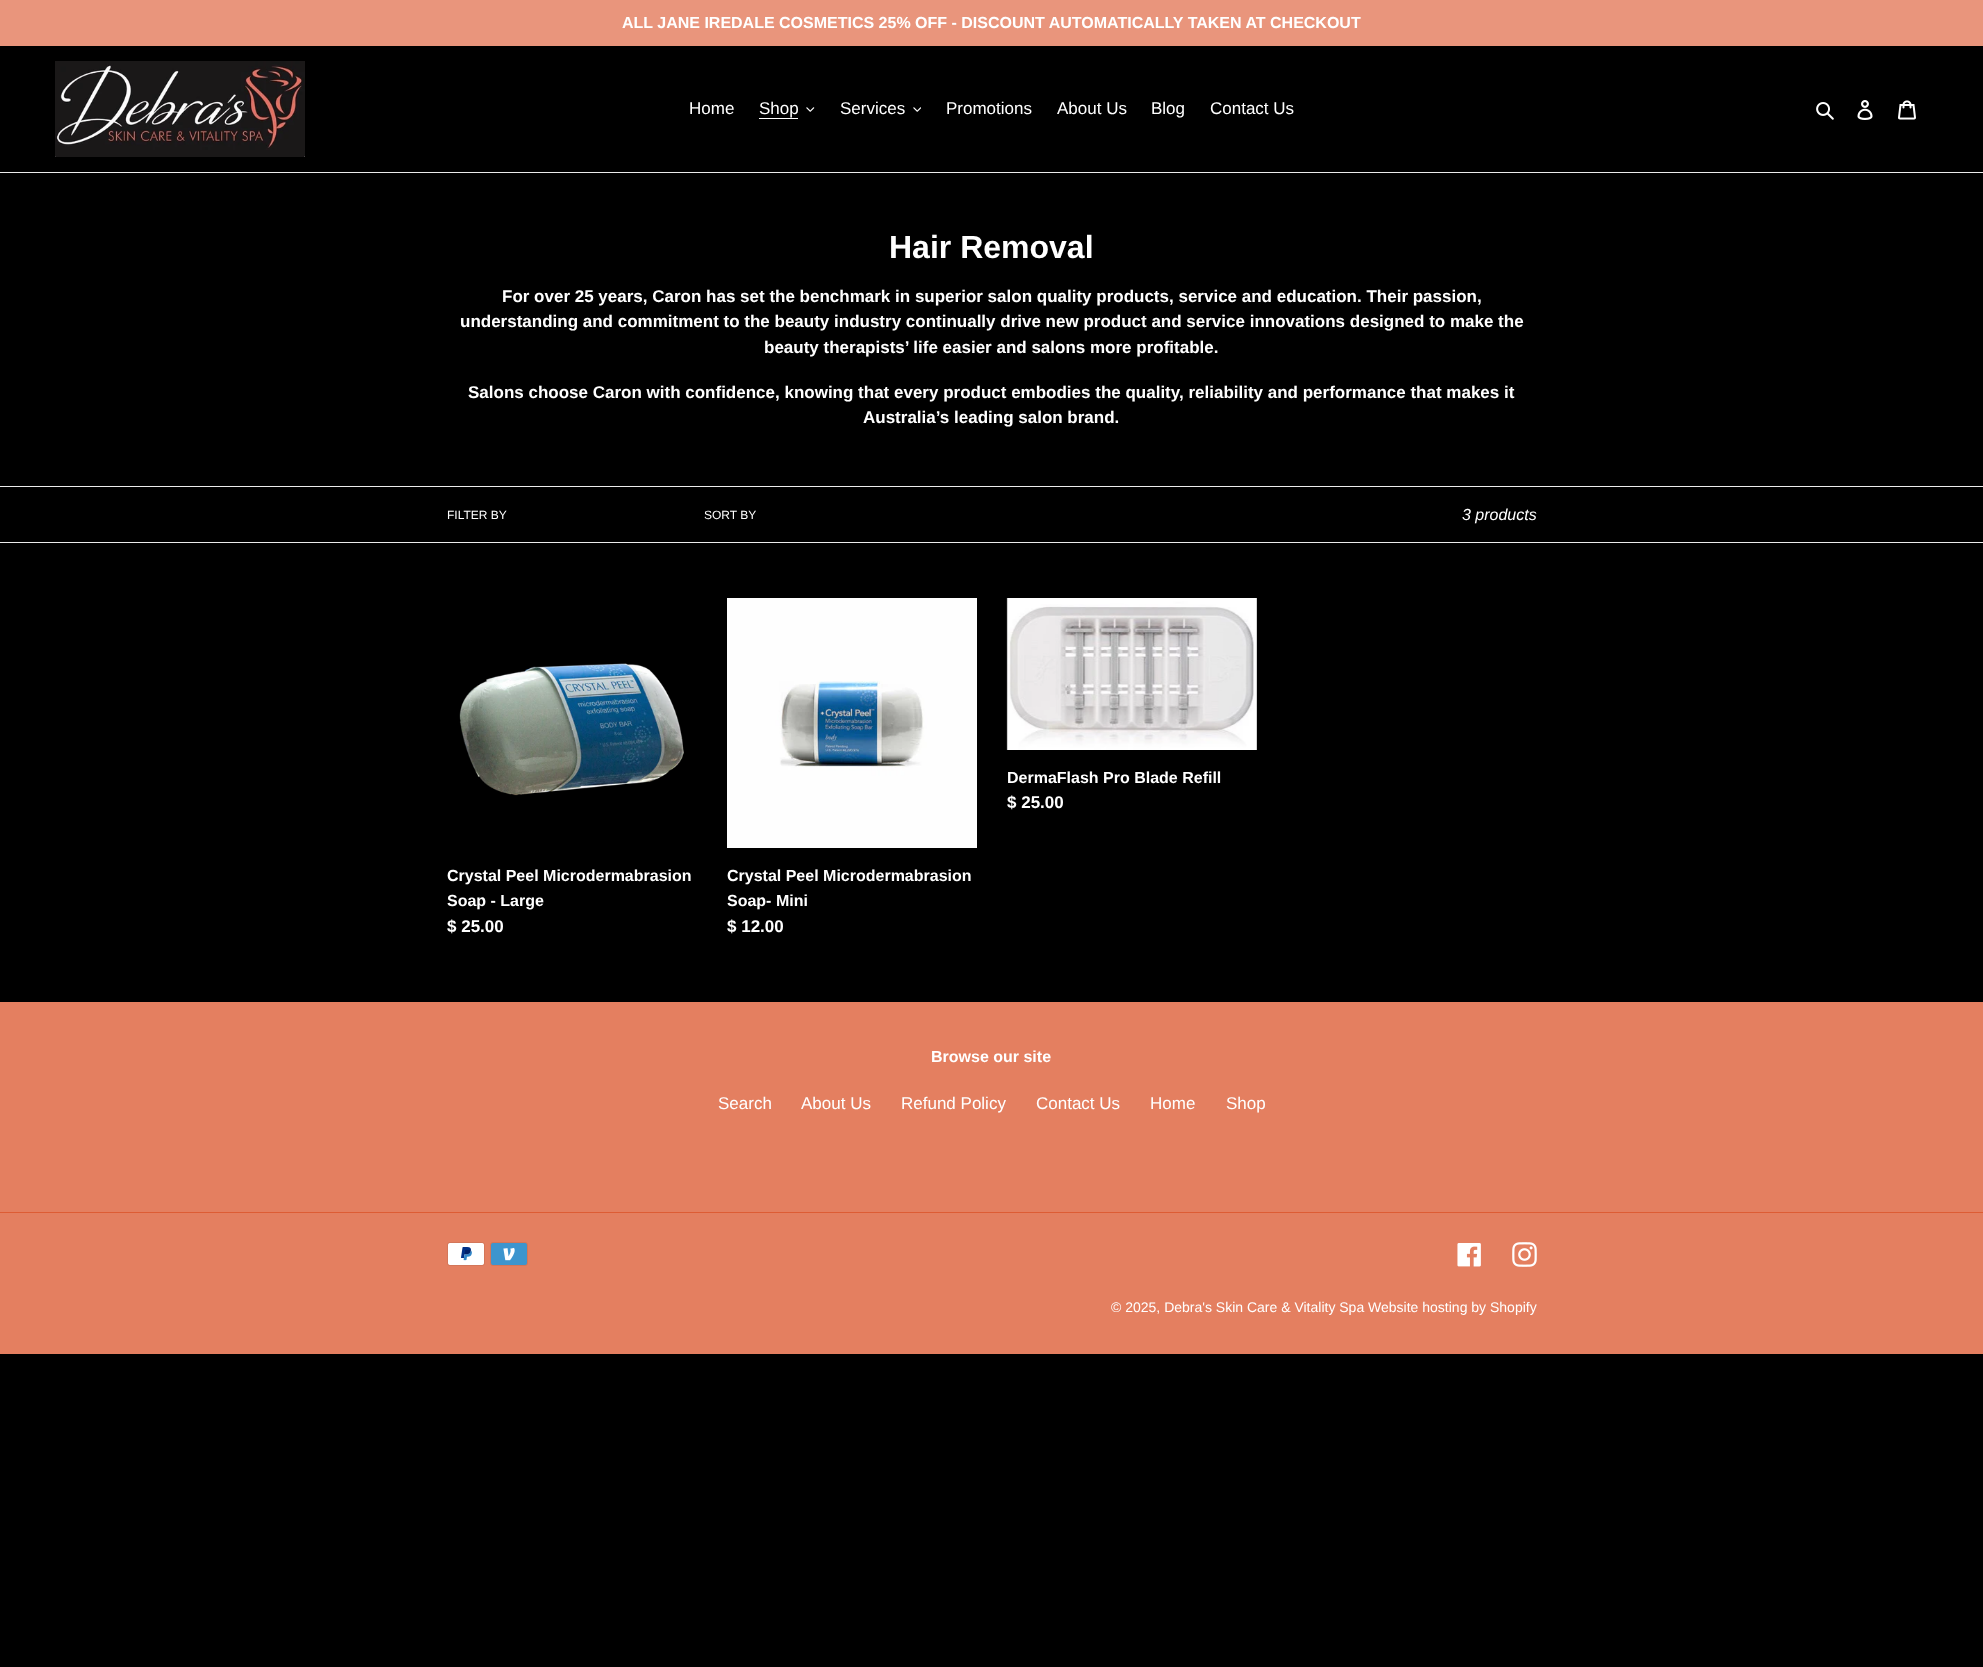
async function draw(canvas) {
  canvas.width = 1983;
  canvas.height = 1667;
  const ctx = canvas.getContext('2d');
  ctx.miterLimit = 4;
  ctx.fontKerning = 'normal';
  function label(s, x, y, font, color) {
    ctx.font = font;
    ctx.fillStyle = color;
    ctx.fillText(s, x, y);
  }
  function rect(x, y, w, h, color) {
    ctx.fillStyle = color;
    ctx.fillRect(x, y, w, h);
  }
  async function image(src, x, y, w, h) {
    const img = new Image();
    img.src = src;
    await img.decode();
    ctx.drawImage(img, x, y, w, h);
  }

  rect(0, 0, 1983, 1667, '#000');
  rect(0, 0, 1983, 46, '#e9957c');
  label('ALL JANE IREDALE COSMETICS 25% OFF - DISCOUNT AUTOMATICALLY TAKEN AT CHECKOUT', 622, 28, 'bold 16px Liberation Sans', '#fff');
  rect(0, 172, 1983, 1, '#ebebeb');
  await image('assets/img1.png', 55, 61, 250, 96);
  label('Home', 689, 114, '17px Liberation Sans', '#fff');
  label('Shop', 759, 114, '17px Liberation Sans', '#fff');
  rect(759, 118, 39, 1, '#fff');
  await image('assets/img2.png', 806, 107, 9, 5);
  label('Services', 840, 114, '17px Liberation Sans', '#fff');
  await image('assets/img3.png', 913, 107, 8, 5);
  label('Promotions', 946, 114, '17px Liberation Sans', '#fff');
  label('About Us', 1057, 114, '17px Liberation Sans', '#fff');
  label('Blog', 1151, 114, '17px Liberation Sans', '#fff');
  label('Contact Us', 1210, 114, '17px Liberation Sans', '#fff');
  await image('assets/img4.png', 1816, 102, 18, 18);
  await image('assets/img5.png', 1857, 100, 16, 20);
  await image('assets/img6.png', 1898, 100, 18, 20);
  label('Hair Removal', 889, 258, 'bold 32px Liberation Sans', '#fff');
  label('For over 25 years, Caron has set the benchmark in superior salon quality products, service and education. Their passion,', 502, 302, 'bold 17px Liberation Sans', '#fff');
  label('understanding and commitment to the beauty industry continually drive new product and service innovations designed to make the', 460, 327, 'bold 17px Liberation Sans', '#fff');
  label('beauty therapists’ life easier and salons more profitable.', 764, 353, 'bold 17px Liberation Sans', '#fff');
  label('Salons choose Caron with confidence, knowing that every product embodies the quality, reliability and performance that makes it', 468, 398, 'bold 17px Liberation Sans', '#fff');
  label('Australia’s leading salon brand.', 863, 423, 'bold 17px Liberation Sans', '#fff');
  rect(0, 486, 1983, 1, '#ebebeb');
  rect(0, 542, 1983, 1, '#ebebeb');
  label('FILTER BY', 447, 519, '12px Liberation Sans', '#fff');
  label('SORT BY', 704, 519, '12px Liberation Sans', '#fff');
  label('3 products', 1462, 520, 'italic 16px Liberation Sans', '#fff');
  await image('assets/img7.png', 1006, 598, 251, 152);
  label('DermaFlash Pro Blade Refill', 1007, 783, 'bold 16px Liberation Sans', '#fff');
  label('$ 25.00', 1007, 808, 'bold 17px Liberation Sans', '#fff');
  await image('assets/img8.png', 459, 663, 225, 133);
  label('Crystal Peel Microdermabrasion', 447, 881, 'bold 16px Liberation Sans', '#fff');
  label('Soap - Large', 447, 906, 'bold 16px Liberation Sans', '#fff');
  label('$ 25.00', 447, 932, 'bold 17px Liberation Sans', '#fff');
  await image('assets/img9.png', 727, 598, 250, 250);
  label('Crystal Peel Microdermabrasion', 727, 881, 'bold 16px Liberation Sans', '#fff');
  label('Soap- Mini', 727, 906, 'bold 16px Liberation Sans', '#fff');
  label('$ 12.00', 727, 932, 'bold 17px Liberation Sans', '#fff');
  rect(0, 1002, 1983, 352, '#e47f60');
  label('Browse our site', 931, 1062, 'bold 16px Liberation Sans', '#fff');
  label('Search', 718, 1109, '17px Liberation Sans', '#fff');
  label('About Us', 801, 1109, '17px Liberation Sans', '#fff');
  label('Refund Policy', 901, 1109, '17px Liberation Sans', '#fff');
  label('Contact Us', 1036, 1109, '17px Liberation Sans', '#fff');
  label('Home', 1150, 1109, '17px Liberation Sans', '#fff');
  label('Shop', 1226, 1109, '17px Liberation Sans', '#fff');
  rect(0, 1212, 1983, 1, '#dd5c34');
  await image('assets/img10.png', 447, 1242, 38, 24);
  await image('assets/img11.png', 490, 1242, 38, 24);
  await image('assets/img12.png', 1457, 1243, 24, 24);
  await image('assets/img13.png', 1512, 1242, 25, 25);
  label('© 2025, Debra\'s Skin Care & Vitality Spa Website hosting by Shopify', 1111, 1312, '14px Liberation Sans', '#fff');
}

draw(document.querySelector('canvas'));
